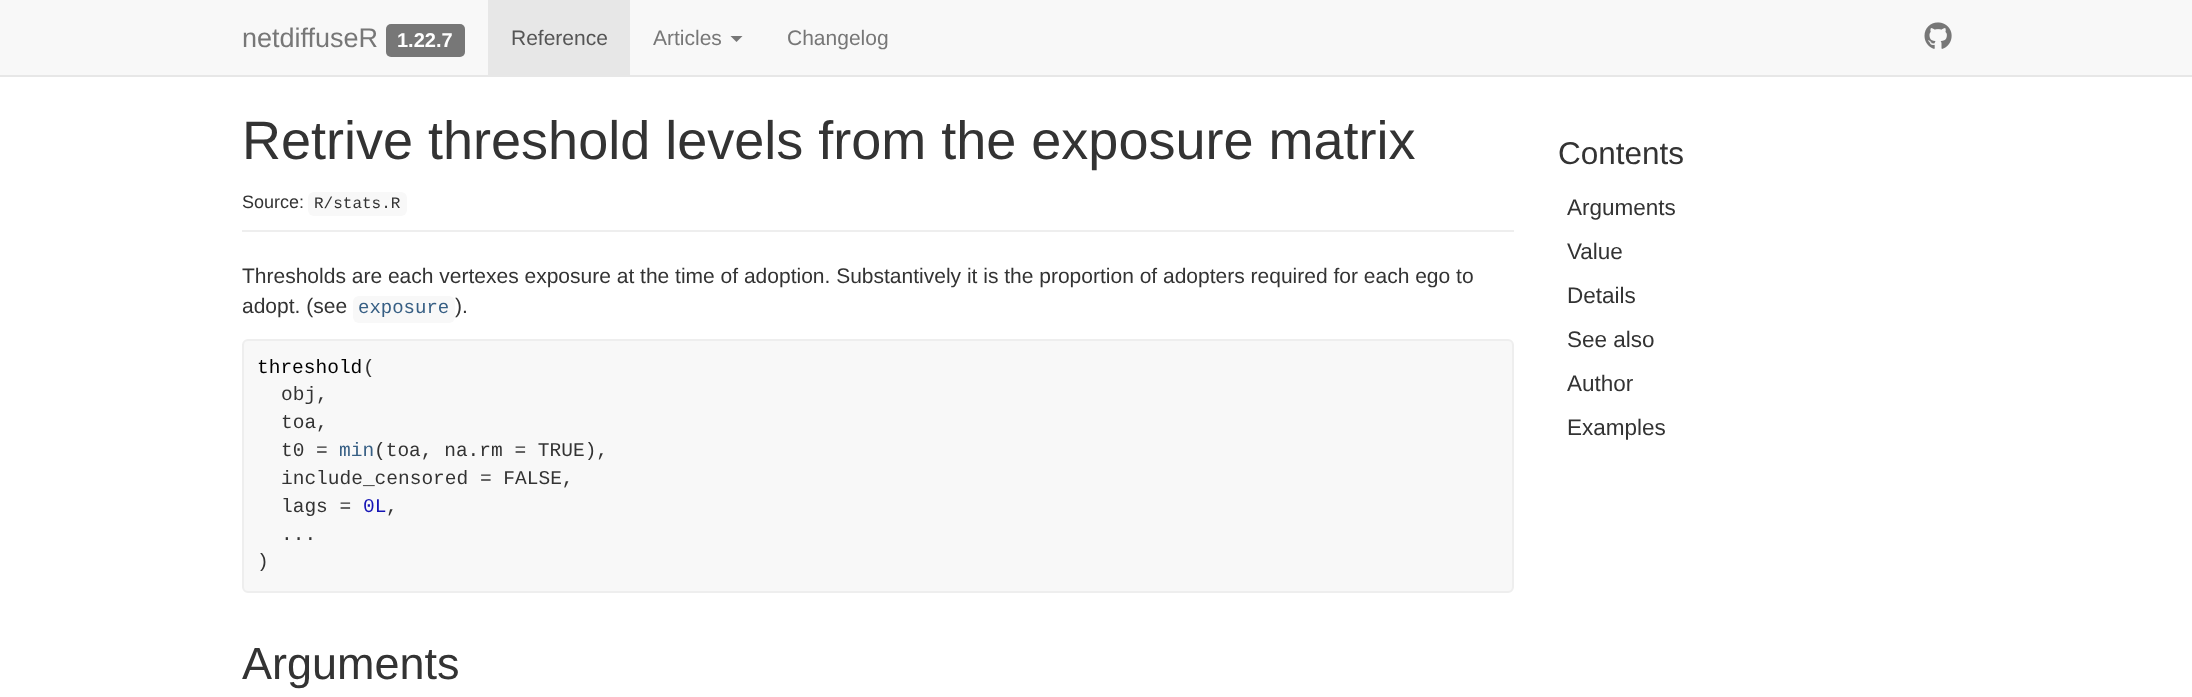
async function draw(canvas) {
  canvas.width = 2192;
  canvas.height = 697;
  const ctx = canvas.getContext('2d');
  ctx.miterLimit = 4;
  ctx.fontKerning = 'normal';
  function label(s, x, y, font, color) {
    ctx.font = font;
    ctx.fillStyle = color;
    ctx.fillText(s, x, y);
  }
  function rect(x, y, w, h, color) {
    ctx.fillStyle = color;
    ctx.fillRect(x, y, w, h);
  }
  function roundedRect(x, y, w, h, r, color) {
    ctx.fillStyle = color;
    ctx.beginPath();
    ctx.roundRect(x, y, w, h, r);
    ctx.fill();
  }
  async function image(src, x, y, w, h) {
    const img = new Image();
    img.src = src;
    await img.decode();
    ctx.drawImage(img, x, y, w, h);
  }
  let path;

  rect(0, 0, 2192, 697, '#fff');
  rect(0, 0, 2192, 75, '#f8f8f8');
  rect(0, 75, 2192, 2, '#e7e7e7');
  label('netdiffuseR', 242, 47, '27px Liberation Sans', '#777');
  roundedRect(386, 24, 79, 33, 5, '#777');
  label('1.22.7', 397, 47, 'bold 20px Liberation Sans', '#fff');
  rect(488, 0, 142, 75, '#e7e7e7');
  label('Reference', 511, 45, '21px Liberation Sans', '#555');
  label('Articles', 653, 45, '21px Liberation Sans', '#777');
  path = new Path2D('M730.5 36H742.5L736.5 42Z');
  ctx.fill(path);
  label('Changelog', 787, 45, '21px Liberation Sans', '#777');
  await image('assets/img1.png', 1924, 22, 28, 27);
  rect(242, 230, 1272, 2, '#eee');
  label('Retrive threshold levels from the exposure matrix', 242, 159, '54px Liberation Sans', '#333');
  label('Source:', 242, 208, '18px Liberation Sans', '#333');
  roundedRect(308, 192, 99, 24, 6, '#f8f8f8');
  label('R/stats.R', 314, 208, '16px Liberation Mono', '#333');
  label('Thresholds are each vertexes exposure at the time of adoption. Substantively it is the proportion of adopters required for each ego to', 242, 283, '21px Liberation Sans', '#333');
  label('adopt. (see', 242, 313, '21px Liberation Sans', '#333');
  roundedRect(353, 296, 102, 27, 6, '#f8f8f8');
  label('exposure', 358, 313, '19px Liberation Mono', '#375f84');
  label(').', 455, 313, '21px Liberation Sans', '#333');
  ctx.fillStyle = '#f8f8f8';
  ctx.beginPath();
  ctx.roundRect(243, 340, 1270, 252, 5);
  ctx.fill();
  ctx.strokeStyle = '#eee';
  ctx.lineWidth = 2;
  ctx.stroke();
  label('threshold', 257, 373, '19.5px Liberation Mono', '#000');
  label('(', 363, 373, '19.5px Liberation Mono', '#333');
  label('obj,', 281, 400, '19.5px Liberation Mono', '#333');
  label('toa,', 281, 428, '19.5px Liberation Mono', '#333');
  label('t0 =', 281, 456, '19.5px Liberation Mono', '#333');
  label('min', 339, 456, '19.5px Liberation Mono', '#375f84');
  label('(toa, na.rm = TRUE),', 374, 456, '19.5px Liberation Mono', '#333');
  label('include_censored = FALSE,', 281, 484, '19.5px Liberation Mono', '#333');
  label('lags =', 281, 512, '19.5px Liberation Mono', '#333');
  label('0L', 363, 512, '19.5px Liberation Mono', '#1514b5');
  label(',', 386, 512, '19.5px Liberation Mono', '#333');
  label('...', 281, 540, '19.5px Liberation Mono', '#333');
  label(')', 257, 567, '19.5px Liberation Mono', '#333');
  label('Arguments', 242, 679, '45px Liberation Sans', '#333');
  label('Contents', 1558, 164, '31.5px Liberation Sans', '#333');
  label('Arguments', 1567, 215, '22.5px Liberation Sans', '#333');
  label('Value', 1567, 259, '22.5px Liberation Sans', '#333');
  label('Details', 1567, 303, '22.5px Liberation Sans', '#333');
  label('See also', 1567, 347, '22.5px Liberation Sans', '#333');
  label('Author', 1567, 391, '22.5px Liberation Sans', '#333');
  label('Examples', 1567, 435, '22.5px Liberation Sans', '#333');
}

draw(document.querySelector('canvas'));
